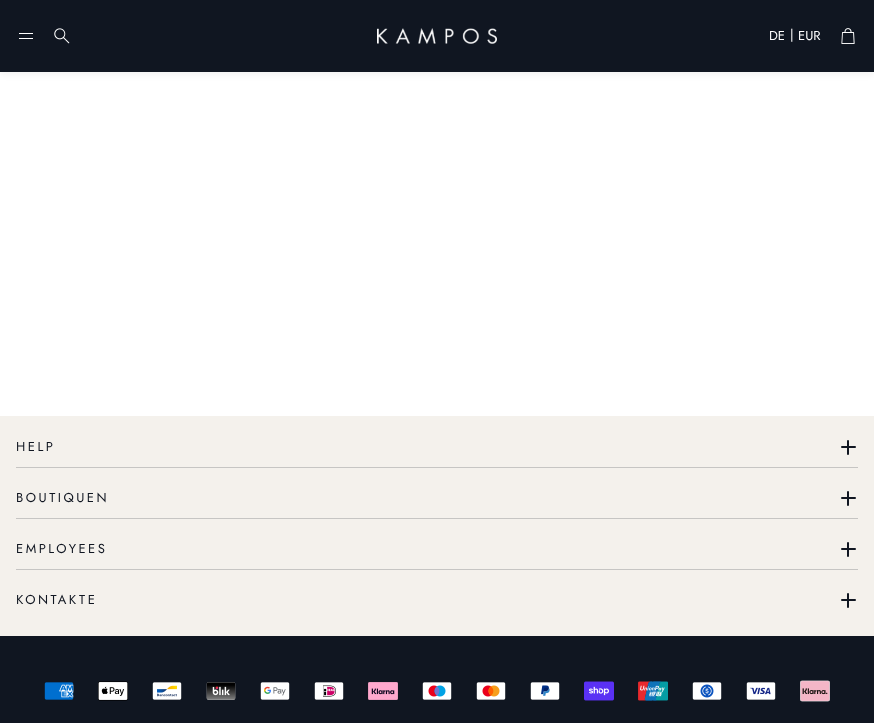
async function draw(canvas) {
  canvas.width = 874;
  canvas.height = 723;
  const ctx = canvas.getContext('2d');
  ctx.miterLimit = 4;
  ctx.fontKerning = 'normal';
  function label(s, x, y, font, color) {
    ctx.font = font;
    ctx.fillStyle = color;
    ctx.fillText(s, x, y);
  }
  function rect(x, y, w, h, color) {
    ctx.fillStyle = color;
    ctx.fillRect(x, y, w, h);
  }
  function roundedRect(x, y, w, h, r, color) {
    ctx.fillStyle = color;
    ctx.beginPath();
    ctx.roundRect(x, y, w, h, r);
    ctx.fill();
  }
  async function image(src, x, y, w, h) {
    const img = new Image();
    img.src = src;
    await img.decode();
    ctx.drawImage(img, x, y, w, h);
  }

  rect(0, 0, 874, 723, '#fff');
  ctx.fillStyle = '#0000000d';
  ctx.filter = 'blur(3px)';
  ctx.beginPath();
  ctx.rect(0, 3, 874, 72);
  ctx.fill();
  ctx.filter = 'none';
  rect(0, 0, 874, 72, '#101621');
  rect(19, 33, 14, 1, '#fff');
  rect(19, 38, 14, 1, '#fff');
  await image('assets/img1.png', 54, 28, 16, 16);
  await image('assets/img2.png', 377, 28, 120, 16);
  label('DE', 769, 40, '13px Jost', '#fff');
  label('|', 790, 39, '13px Jost', '#fff');
  label('EUR', 798, 40, '13px Jost', '#fff');
  await image('assets/img3.png', 841, 28, 14, 16);
  rect(0, 416, 874, 220, '#f4f1ec');
  ctx.letterSpacing = '2.5px';
  label('HELP', 16, 451, '13px Jost', '#101621');
  roundedRect(841, 446, 15, 2, 1, '#101621');
  roundedRect(847, 440, 2, 15, 1, '#101621');
  rect(16, 467, 842, 1, '#c6c5c3');
  label('BOUTIQUEN', 16, 502, '13px Jost', '#101621');
  roundedRect(841, 497, 15, 2, 1, '#101621');
  roundedRect(847, 491, 2, 15, 1, '#101621');
  rect(16, 518, 842, 1, '#c6c5c3');
  label('EMPLOYEES', 16, 553, '13px Jost', '#101621');
  roundedRect(841, 548, 15, 2, 1, '#101621');
  roundedRect(847, 542, 2, 15, 1, '#101621');
  rect(16, 569, 842, 1, '#c6c5c3');
  label('KONTAKTE', 16, 604, '13px Jost', '#101621');
  roundedRect(841, 599, 15, 2, 1, '#101621');
  roundedRect(847, 593, 2, 15, 1, '#101621');
  rect(0, 636, 874, 87, '#101621');
  await image('assets/img4.png', 44, 682, 30, 18);
  await image('assets/img5.png', 98, 681, 30, 20);
  await image('assets/img6.png', 152, 682, 30, 18);
  await image('assets/img7.png', 206, 682, 30, 18);
  await image('assets/img8.png', 260, 682, 30, 18);
  await image('assets/img9.png', 314, 682, 30, 18);
  await image('assets/img10.png', 368, 682, 30, 18);
  await image('assets/img11.png', 422, 682, 30, 18);
  await image('assets/img12.png', 476, 682, 30, 18);
  await image('assets/img13.png', 530, 682, 30, 18);
  await image('assets/img14.png', 584, 681, 30, 20);
  await image('assets/img15.png', 638, 681, 30, 20);
  await image('assets/img16.png', 692, 682, 30, 18);
  await image('assets/img17.png', 746, 682, 30, 18);
  await image('assets/img18.png', 800, 680, 30, 22);
}

draw(document.querySelector('canvas'));
